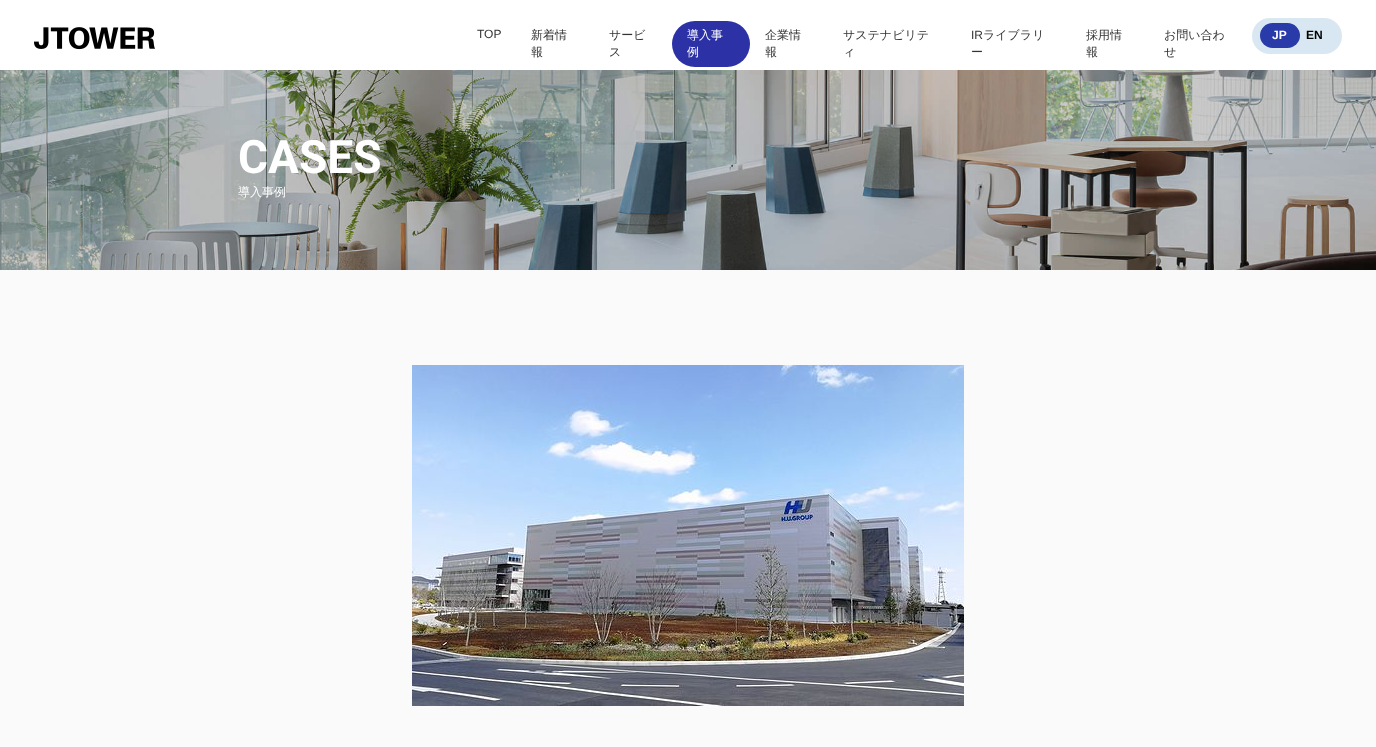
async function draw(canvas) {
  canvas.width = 1376;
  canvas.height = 747;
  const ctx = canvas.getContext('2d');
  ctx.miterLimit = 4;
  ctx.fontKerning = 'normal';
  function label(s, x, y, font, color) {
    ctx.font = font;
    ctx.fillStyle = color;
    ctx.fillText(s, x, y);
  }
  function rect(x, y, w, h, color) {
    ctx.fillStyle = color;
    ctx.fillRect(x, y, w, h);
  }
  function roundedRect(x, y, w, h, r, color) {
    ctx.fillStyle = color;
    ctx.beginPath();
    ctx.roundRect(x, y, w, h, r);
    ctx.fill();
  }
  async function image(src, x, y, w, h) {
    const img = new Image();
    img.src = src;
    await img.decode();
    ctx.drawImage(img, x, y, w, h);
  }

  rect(0, 0, 1376, 747, '#fff');
  await image('assets/img1.png', 34, 27, 121, 23);
  label('TOP', 477, 38, '12px Liberation Sans', '#333');
  label('新着情', 531, 39, '500 12px WenQuanYi Zen Hei', '#333');
  label('報', 531, 56, '500 12px WenQuanYi Zen Hei', '#333');
  label('サービ', 609, 39, '500 12px WenQuanYi Zen Hei', '#333');
  label('ス', 609, 56, '500 12px WenQuanYi Zen Hei', '#333');
  roundedRect(672, 21, 78, 46, 23, '#2c31a6');
  label('導入事', 687, 39, '500 12px WenQuanYi Zen Hei', '#fff');
  label('例', 687, 56, '500 12px WenQuanYi Zen Hei', '#fff');
  label('企業情', 765, 39, '500 12px WenQuanYi Zen Hei', '#333');
  label('報', 765, 56, '500 12px WenQuanYi Zen Hei', '#333');
  label('サステナビリテ', 843, 39, '500 12px WenQuanYi Zen Hei', '#333');
  label('ィ', 843, 56, '500 12px WenQuanYi Zen Hei', '#333');
  label('IR', 971, 39, '12px Liberation Sans', '#333');
  label('ライブラリ', 983, 39, '500 12px WenQuanYi Zen Hei', '#333');
  label('ー', 971, 56, '500 12px WenQuanYi Zen Hei', '#333');
  label('採用情', 1086, 39, '500 12px WenQuanYi Zen Hei', '#333');
  label('報', 1086, 56, '500 12px WenQuanYi Zen Hei', '#333');
  label('お問い合わ', 1164, 39, '500 12px WenQuanYi Zen Hei', '#333');
  label('せ', 1164, 56, '500 12px WenQuanYi Zen Hei', '#333');
  roundedRect(1260, 23, 40, 25, 12.5, '#2c31a6');
  roundedRect(1252, 18, 90, 36, 18, '#1d73b22b');
  label('JP', 1272, 39, 'bold 12px Liberation Sans', '#fff');
  label('EN', 1306, 39, 'bold 12px Liberation Sans', '#000');
  rect(0, 270, 1376, 477, '#fafafa');
  await image('assets/img2.png', 0, 70, 1376, 200);
  label('CASES', 238, 173, 'bold 46px Roboto', '#fff');
  label('導入事例', 238, 196, '500 12px WenQuanYi Zen Hei', '#fff');
  await image('assets/img3.png', 412, 365, 552, 341);
}

draw(document.querySelector('canvas'));
